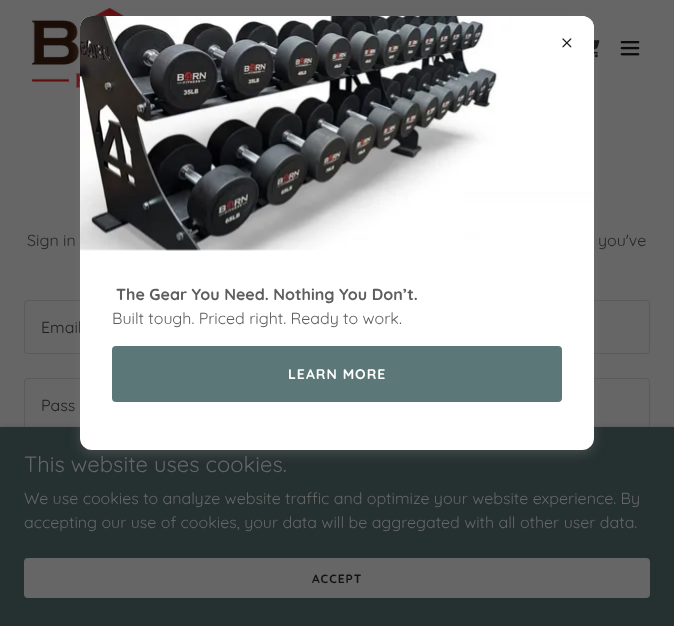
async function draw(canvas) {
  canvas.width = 674;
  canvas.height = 626;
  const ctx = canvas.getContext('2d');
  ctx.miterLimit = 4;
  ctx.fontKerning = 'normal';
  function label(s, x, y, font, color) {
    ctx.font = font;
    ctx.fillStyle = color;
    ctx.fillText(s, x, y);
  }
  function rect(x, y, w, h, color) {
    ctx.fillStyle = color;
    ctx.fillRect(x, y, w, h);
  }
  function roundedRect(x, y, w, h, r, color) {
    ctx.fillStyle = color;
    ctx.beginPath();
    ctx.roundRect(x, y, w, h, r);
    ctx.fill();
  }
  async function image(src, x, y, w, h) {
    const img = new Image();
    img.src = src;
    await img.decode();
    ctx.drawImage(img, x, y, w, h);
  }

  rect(0, 0, 674, 626, '#666');
  await image('assets/img1.png', 32, 8, 93, 80);
  await image('assets/img2.png', 594, 40, 6, 18);
  await image('assets/img3.png', 620, 41, 20, 15);
  label('Sign in', 27, 246, '16px Quicksand', '#262626');
  label('you\'ve', 598, 246, '16px Quicksand', '#262626');
  ctx.beginPath();
  ctx.roundRect(24.5, 300.5, 625, 53, 3.5);
  ctx.strokeStyle = '#5a5a5a';
  ctx.stroke();
  label('Email', 41, 333, '16px Quicksand', '#1c1c1c');
  ctx.beginPath();
  ctx.roundRect(24.5, 378.5, 625, 53, 3.5);
  ctx.stroke();
  label('Pass', 41, 411, '16px Quicksand', '#1c1c1c');
  ctx.fillStyle = '#0000004d';
  ctx.filter = 'blur(3px)';
  ctx.beginPath();
  ctx.rect(0, 429, 674, 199);
  ctx.fill();
  ctx.filter = 'none';
  rect(0, 427, 674, 199, '#253030');
  ctx.fillStyle = '#75757566';
  ctx.filter = 'blur(6px)';
  ctx.beginPath();
  ctx.roundRect(80, 20, 514, 434, 12);
  ctx.fill();
  ctx.filter = 'none';
  roundedRect(80, 16, 514, 434, 12, '#fff');
  await image('assets/img5.png', 80, 16, 514, 235);
  await image('assets/img4.png', 562, 38, 10, 10);
  label('The Gear You Need. Nothing You Don’t.', 116, 300, 'bold 16px Quicksand', '#5e5e5e');
  label('Built tough. Priced right. Ready to work.', 112, 324, '16px Quicksand', '#5e5e5e');
  roundedRect(112, 346, 450, 56, 4, '#5c7777');
  ctx.letterSpacing = '1px';
  label('LEARN MORE', 288, 379, 'bold 14px Quicksand', '#fff');
  ctx.letterSpacing = '0px';
  label('This website uses cookies.', 24, 472, '22px Quicksand', '#666');
  label('We use cookies to analyze website traffic and optimize your website experience. By', 24, 504, '16px Quicksand', '#666');
  label('accepting our use of cookies, your data will be aggregated with all other user data.', 24, 528, '16px Quicksand', '#666');
  roundedRect(24, 558, 626, 40, 4, '#666');
  ctx.letterSpacing = '1px';
  label('ACCEPT', 312, 583, 'bold 12px Quicksand', '#131313');
}

draw(document.querySelector('canvas'));
